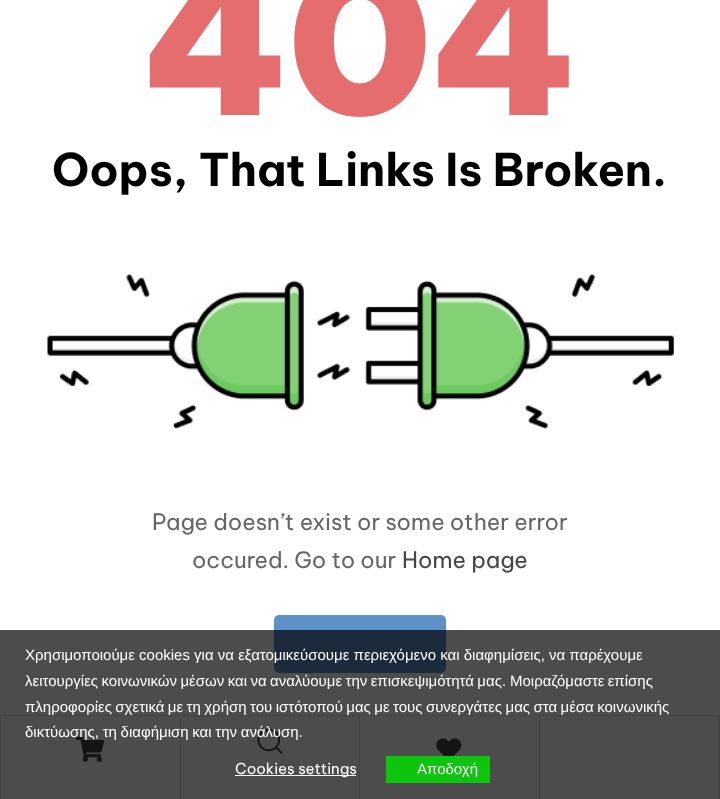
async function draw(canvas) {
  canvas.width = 720;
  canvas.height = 799;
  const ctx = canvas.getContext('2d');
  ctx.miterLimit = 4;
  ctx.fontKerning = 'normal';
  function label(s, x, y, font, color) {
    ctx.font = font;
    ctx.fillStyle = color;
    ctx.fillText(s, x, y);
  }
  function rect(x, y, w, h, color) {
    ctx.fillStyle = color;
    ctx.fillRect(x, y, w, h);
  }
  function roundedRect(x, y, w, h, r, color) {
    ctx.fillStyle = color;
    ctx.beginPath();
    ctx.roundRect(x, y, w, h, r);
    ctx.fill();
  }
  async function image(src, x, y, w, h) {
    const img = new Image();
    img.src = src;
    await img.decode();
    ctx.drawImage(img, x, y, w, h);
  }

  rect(0, 0, 720, 799, '#fff');
  label('404', 143, 115, '900 200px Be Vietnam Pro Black', '#e56d6d');
  label('Oops, That Links Is Broken.', 52, 186, 'bold 45px Be Vietnam Pro', '#000');
  await image('assets/img1.png', 47, 274, 627, 155);
  label('Page doesn’t exist or some other error', 152, 530, '22.5px Be Vietnam Pro', '#666');
  label('occured. Go to our', 192, 568, '22.5px Be Vietnam Pro', '#666');
  label('Home page', 402, 568, '22.5px Be Vietnam Pro', '#454545');
  roundedRect(274, 615, 172, 58, 5, '#5e91c9');
  ctx.strokeStyle = '#e5e5e5';
  ctx.strokeRect(0.5, 715.5, 719, 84);
  rect(180, 716, 1, 83, '#e5e5e5');
  await image('assets/img2.png', 75, 736, 29, 26);
  rect(359, 716, 1, 83, '#e5e5e5');
  await image('assets/img3.png', 257, 728, 26, 26);
  rect(539, 716, 1, 83, '#e5e5e5');
  await image('assets/img4.png', 436, 738, 26, 18);
  rect(718, 716, 1, 83, '#e5e5e5');
  rect(0, 630, 720, 169, '#000000b3');
  label('Χρησιμοποιούμε cookies για να εξατομικεύσουμε περιεχόμενο και διαφημίσεις, να παρέχουμε', 25, 660, '15px Liberation Sans', '#fff');
  ctx.wordSpacing = '-0.75px';
  label('λειτουργίες κοινωνικών μέσων και να αναλύουμε την επισκεψιμότητά μας.', 25, 686, '15px Liberation Sans', '#fff');
  ctx.wordSpacing = '-1px';
  label('Μοιραζόμαστε επίσης', 510, 686, '15px Liberation Sans', '#fff');
  ctx.wordSpacing = '-0.75px';
  label('πληροφορίες σχετικά με τη χρήση του ιστότοπού μας με τους συνεργάτες μας στα μέσα κοινωνικής', 25, 712, '15px Liberation Sans', '#fff');
  ctx.wordSpacing = '-0.5px';
  label('δικτύωσης, τη διαφήμιση και την ανάλυση.', 25, 737, '15px Liberation Sans', '#fff');
  rect(235, 775, 121, 1, '#fff');
  ctx.wordSpacing = '0px';
  label('Cookies settings', 235, 774, '15px Be Vietnam Pro', '#fff');
  rect(386, 756, 104, 27, '#0ec50e');
  label('Αποδοχή', 417, 774, '15px Liberation Sans', '#fff');
}

draw(document.querySelector('canvas'));
